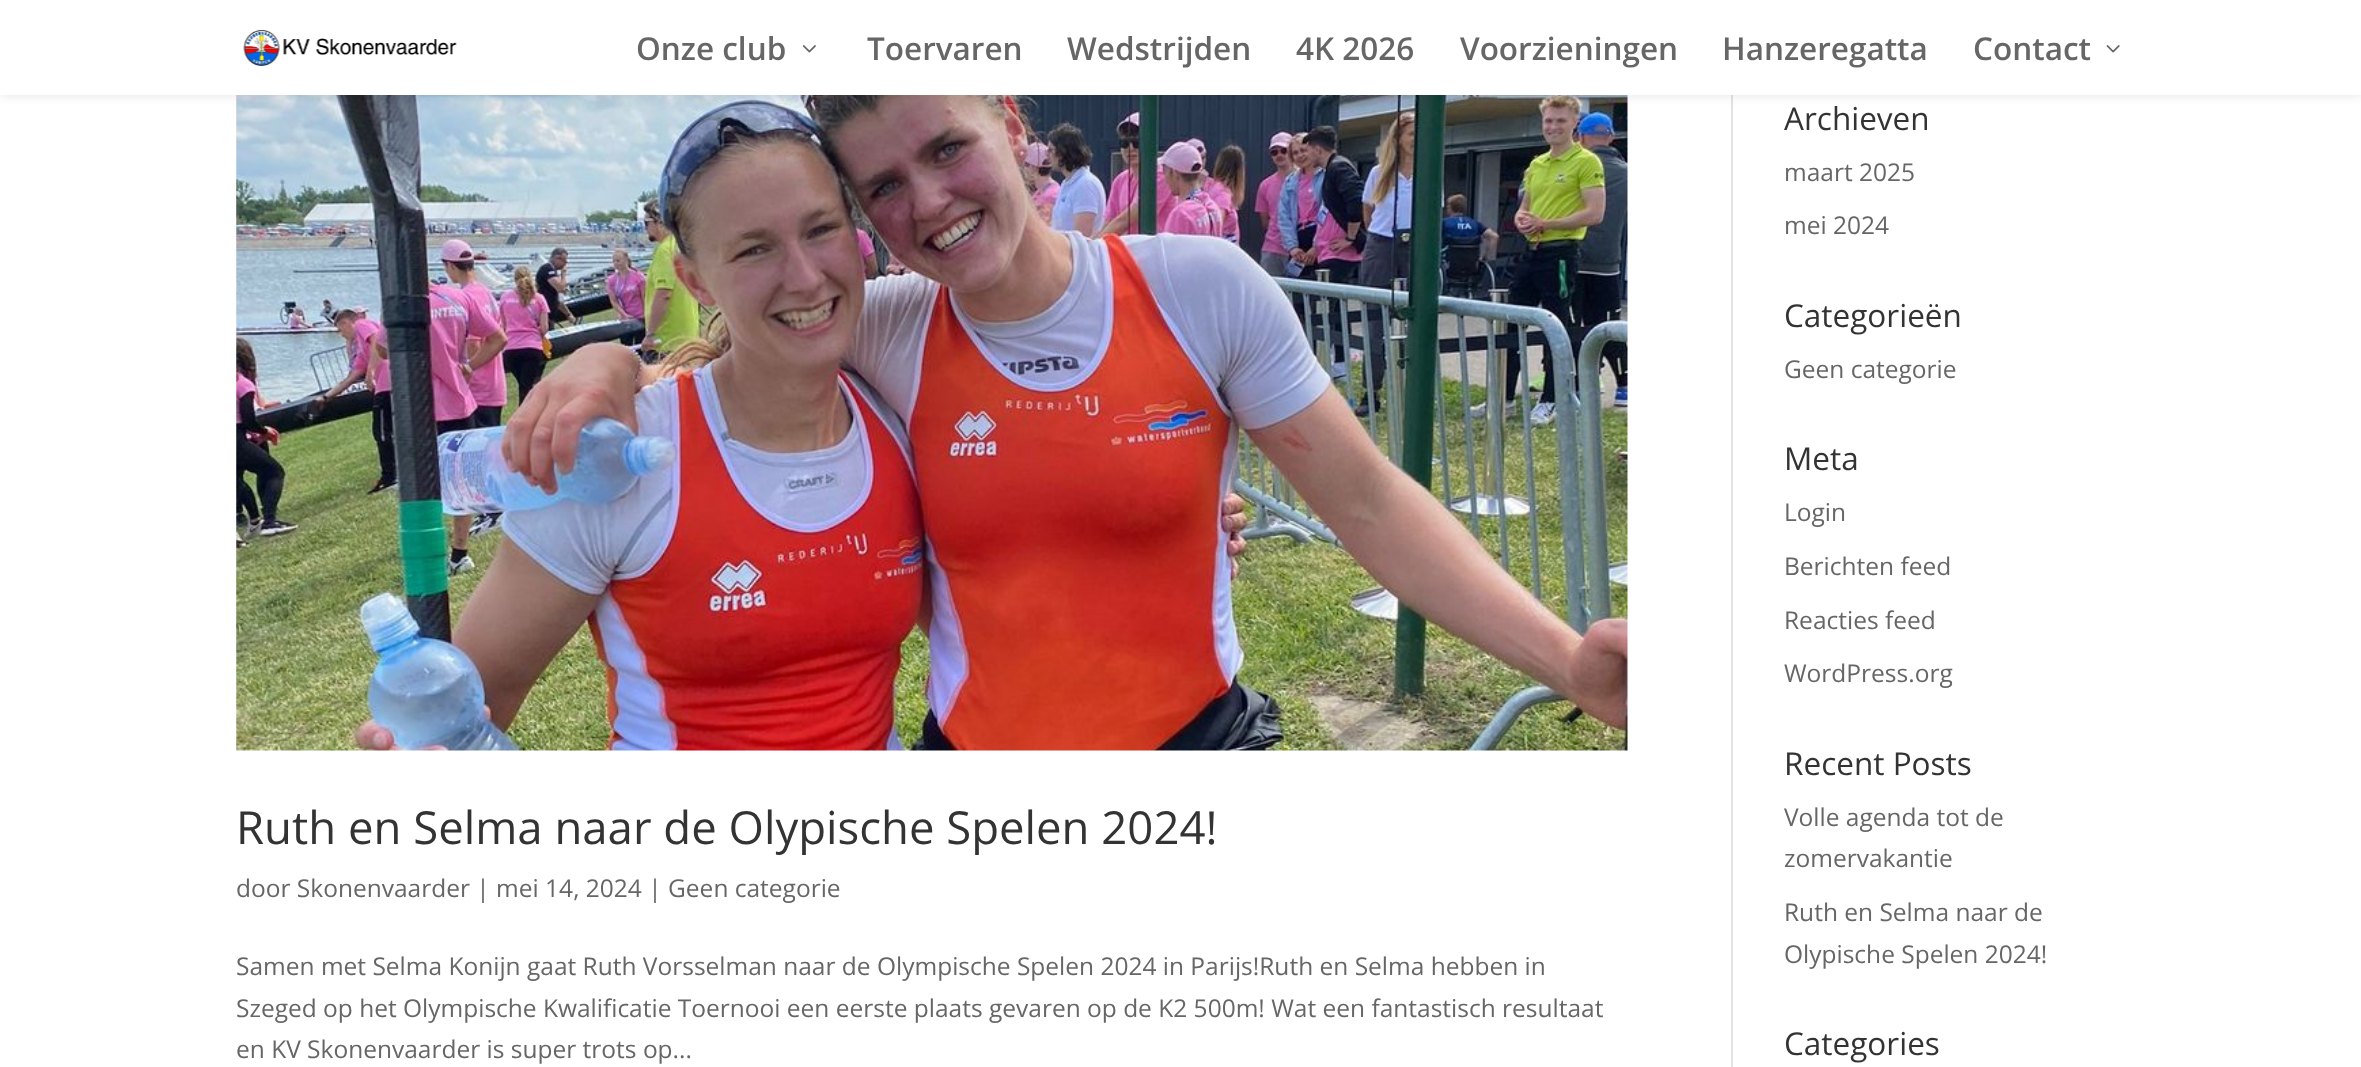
async function draw(canvas) {
  canvas.width = 2361;
  canvas.height = 1067;
  const ctx = canvas.getContext('2d');
  ctx.miterLimit = 4;
  ctx.fontKerning = 'normal';
  function label(s, x, y, font, color) {
    ctx.font = font;
    ctx.fillStyle = color;
    ctx.fillText(s, x, y);
  }
  function rect(x, y, w, h, color) {
    ctx.fillStyle = color;
    ctx.fillRect(x, y, w, h);
  }
  async function image(src, x, y, w, h) {
    const img = new Image();
    img.src = src;
    await img.decode();
    ctx.drawImage(img, x, y, w, h);
  }

  rect(0, 0, 2361, 1067, '#fff');
  rect(1731, 95, 2, 972, '#e2e2e2');
  await image('assets/img4.png', 236, 95, 1392, 656);
  ctx.fillStyle = '#0000001a';
  ctx.filter = 'blur(6px)';
  ctx.beginPath();
  ctx.rect(0, 0, 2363, 95);
  ctx.fill();
  ctx.filter = 'none';
  rect(0, 0, 2361, 95, '#fff');
  await image('assets/img1.png', 243, 29, 214, 37);
  label('Onze club', 636, 60, '600 31.5px Open Sans', '#666');
  await image('assets/img2.png', 802, 45, 14, 8);
  label('Toervaren', 867, 60, '600 31.5px Open Sans', '#666');
  label('Wedstrijden', 1067, 60, '600 31.5px Open Sans', '#666');
  label('4K 2026', 1296, 60, '600 31.5px Open Sans', '#666');
  label('Voorzieningen', 1460, 60, '600 31.5px Open Sans', '#666');
  label('Hanzeregatta', 1722, 60, '600 31.5px Open Sans', '#666');
  label('Contact', 1973, 60, '600 31.5px Open Sans', '#666');
  await image('assets/img3.png', 2106, 45, 14, 8);
  label('Ruth en Selma naar de Olypische Spelen 2024!', 236, 844, '45.5px Open Sans', '#333');
  label('door Skonenvaarder | mei 14, 2024 | Geen categorie', 236, 897, '24.5px Open Sans', '#666');
  label('Samen met Selma Konijn gaat Ruth Vorsselman naar de Olympische Spelen 2024 in Parijs!Ruth en Selma hebben in', 236, 975, '24.5px Open Sans', '#666');
  label('Szeged op het Olympische Kwalificatie Toernooi een eerste plaats gevaren op de K2 500m! Wat een fantastisch resultaat', 236, 1017, '24.5px Open Sans', '#666');
  label('en KV Skonenvaarder is super trots op...', 236, 1058, '24.5px Open Sans', '#666');
  label('Archieven', 1784, 130, '31.5px Open Sans', '#333');
  label('maart 2025', 1784, 181, '24.5px Open Sans', '#666');
  label('mei 2024', 1784, 234, '24.5px Open Sans', '#666');
  label('Categorieën', 1784, 327, '31.5px Open Sans', '#333');
  label('Geen categorie', 1784, 378, '24.5px Open Sans', '#666');
  label('Meta', 1784, 470, '31.5px Open Sans', '#333');
  label('Login', 1784, 521, '24.5px Open Sans', '#666');
  label('Berichten feed', 1784, 575, '24.5px Open Sans', '#666');
  label('Reacties feed', 1784, 629, '24.5px Open Sans', '#666');
  label('WordPress.org', 1784, 682, '24.5px Open Sans', '#666');
  label('Recent Posts', 1784, 775, '31.5px Open Sans', '#333');
  label('Volle agenda tot de', 1784, 826, '24.5px Open Sans', '#666');
  label('zomervakantie', 1784, 867, '24.5px Open Sans', '#666');
  label('Ruth en Selma naar de', 1784, 921, '24.5px Open Sans', '#666');
  label('Olypische Spelen 2024!', 1784, 963, '24.5px Open Sans', '#666');
  label('Categories', 1784, 1055, '31.5px Open Sans', '#333');
}

draw(document.querySelector('canvas'));
